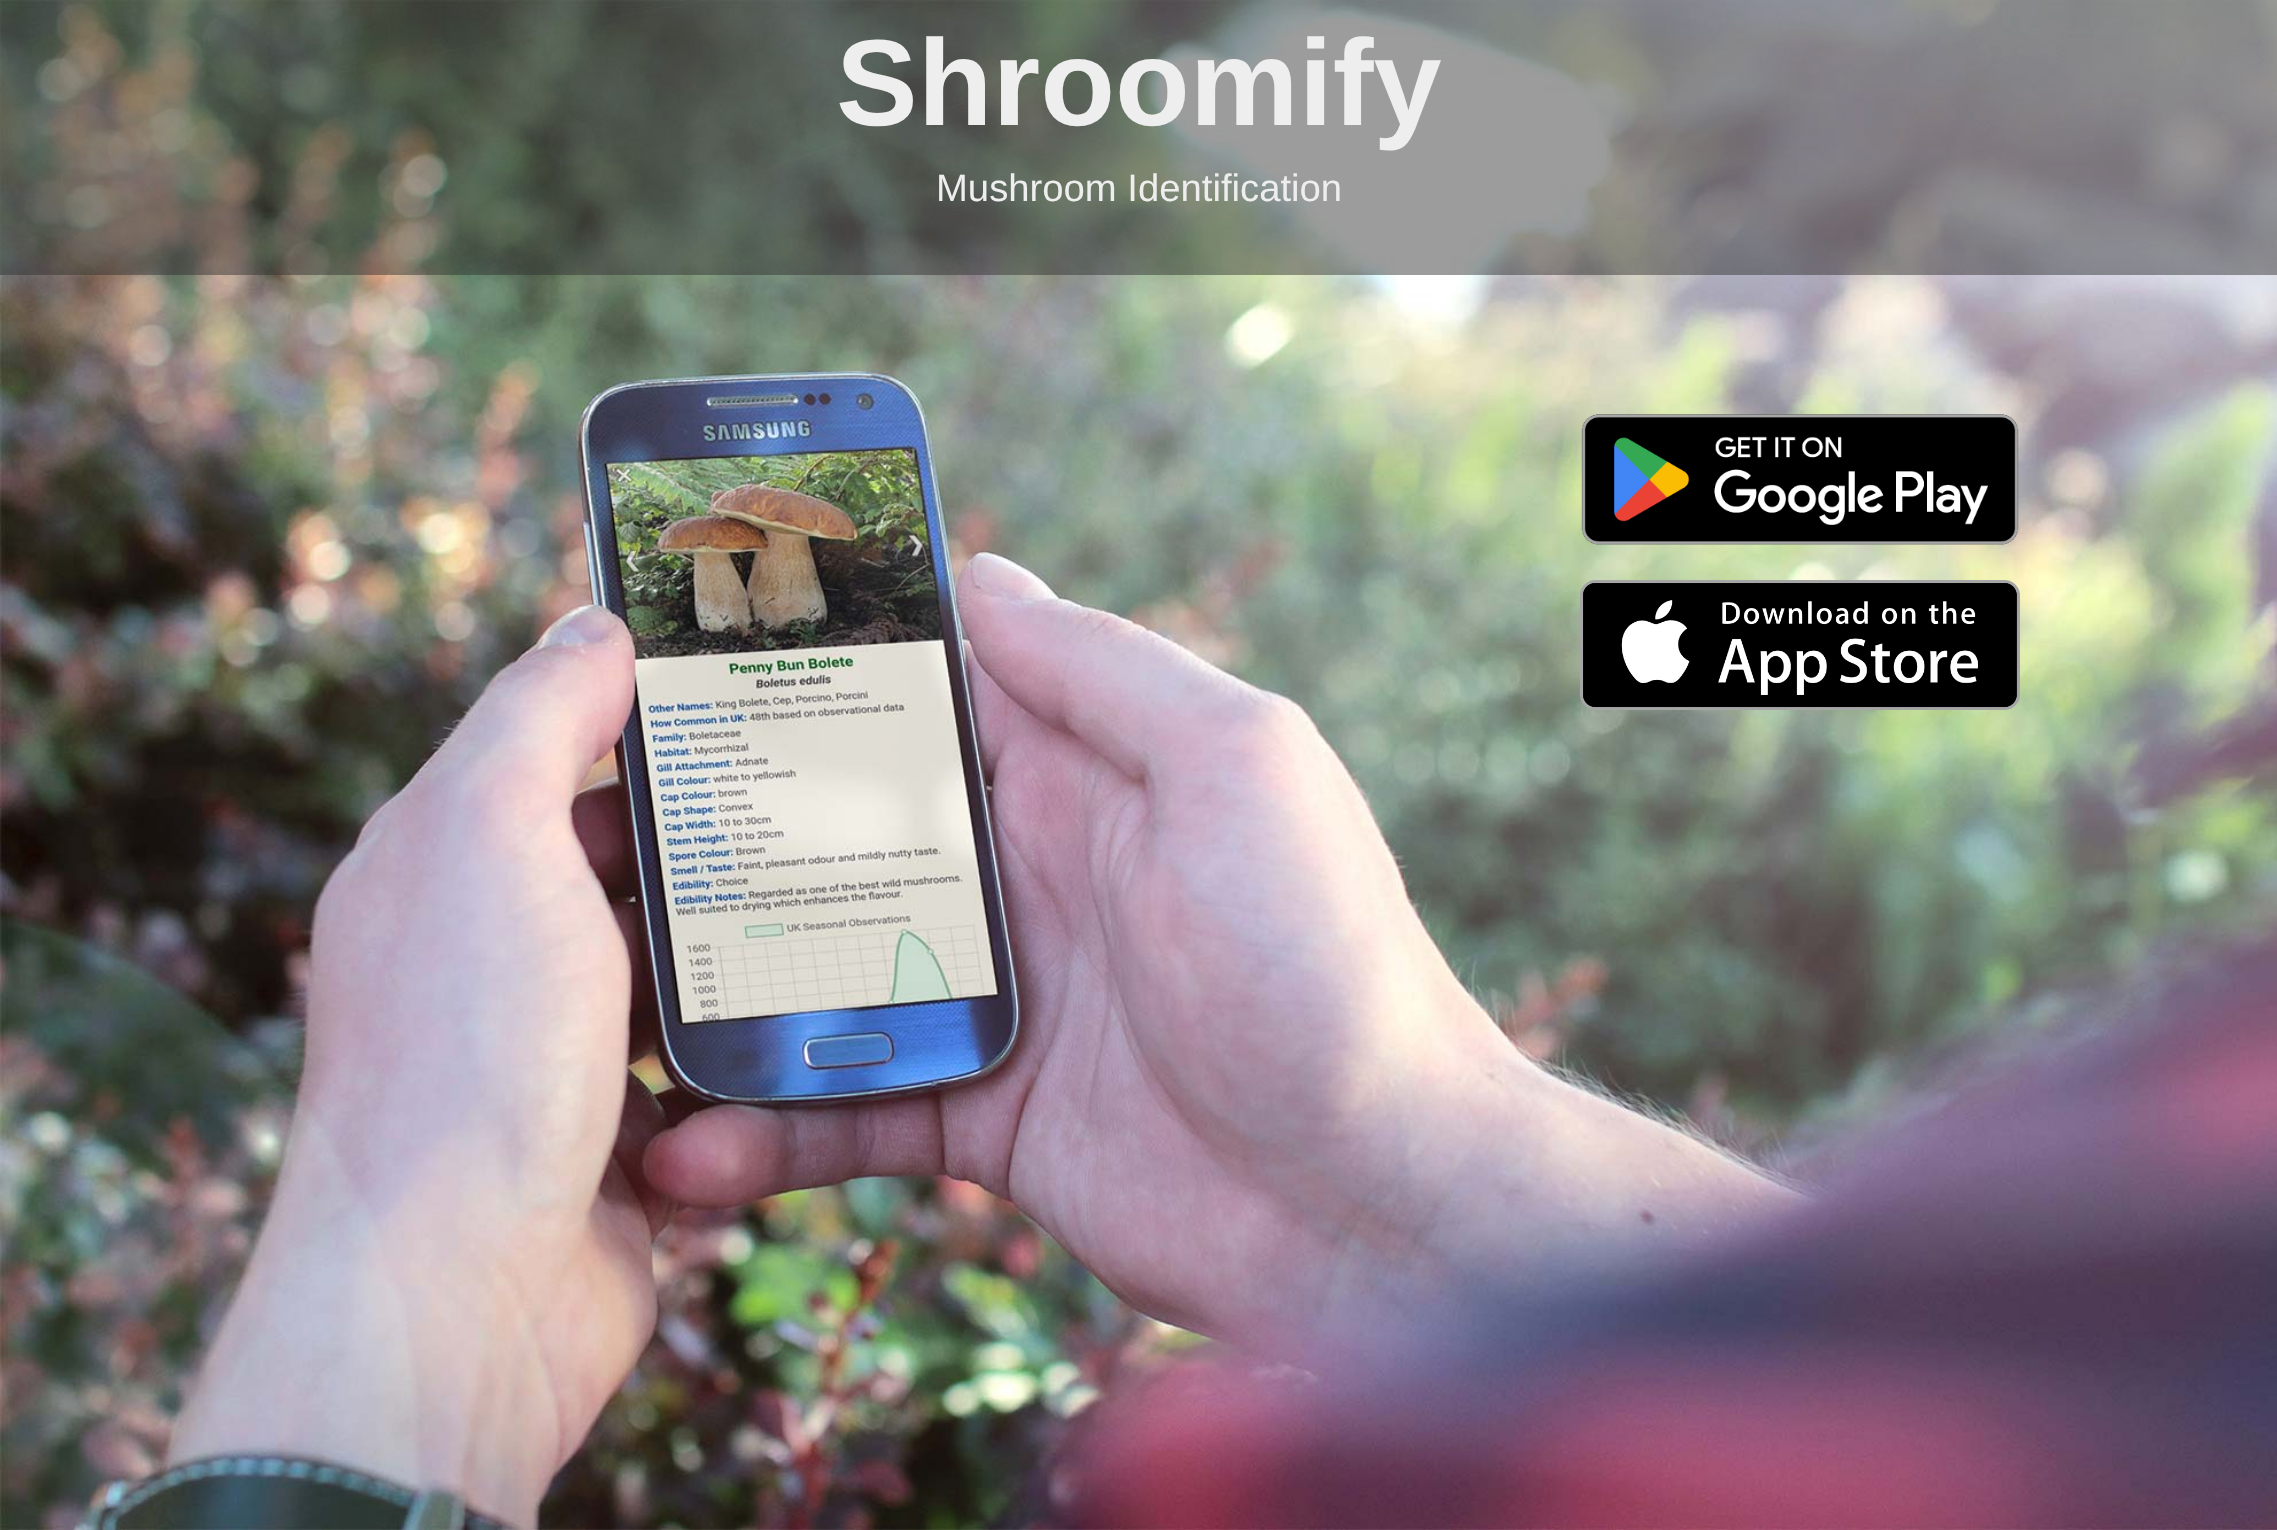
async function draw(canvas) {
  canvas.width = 2277;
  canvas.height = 1530;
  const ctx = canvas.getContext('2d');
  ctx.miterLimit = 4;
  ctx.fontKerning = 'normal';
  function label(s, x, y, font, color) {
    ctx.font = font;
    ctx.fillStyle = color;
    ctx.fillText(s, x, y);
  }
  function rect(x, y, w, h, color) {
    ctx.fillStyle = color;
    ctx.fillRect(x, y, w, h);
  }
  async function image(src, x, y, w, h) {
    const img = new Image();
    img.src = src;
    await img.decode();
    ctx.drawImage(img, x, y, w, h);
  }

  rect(0, 0, 2277, 1530, '#fff');
  await image('assets/img1.png', 0, 0, 2277, 1530);
  rect(0, 0, 2277, 275, '#3131317a');
  label('Shroomify', 836, 125, 'bold 122.5px Liberation Sans', '#eee');
  label('Mushroom Identification', 936, 201, '38.25px Liberation Sans', '#eee');
  await image('assets/img2.png', 1581, 414, 438, 131);
  await image('assets/img3.png', 1580, 580, 440, 130);
}

draw(document.querySelector('canvas'));
